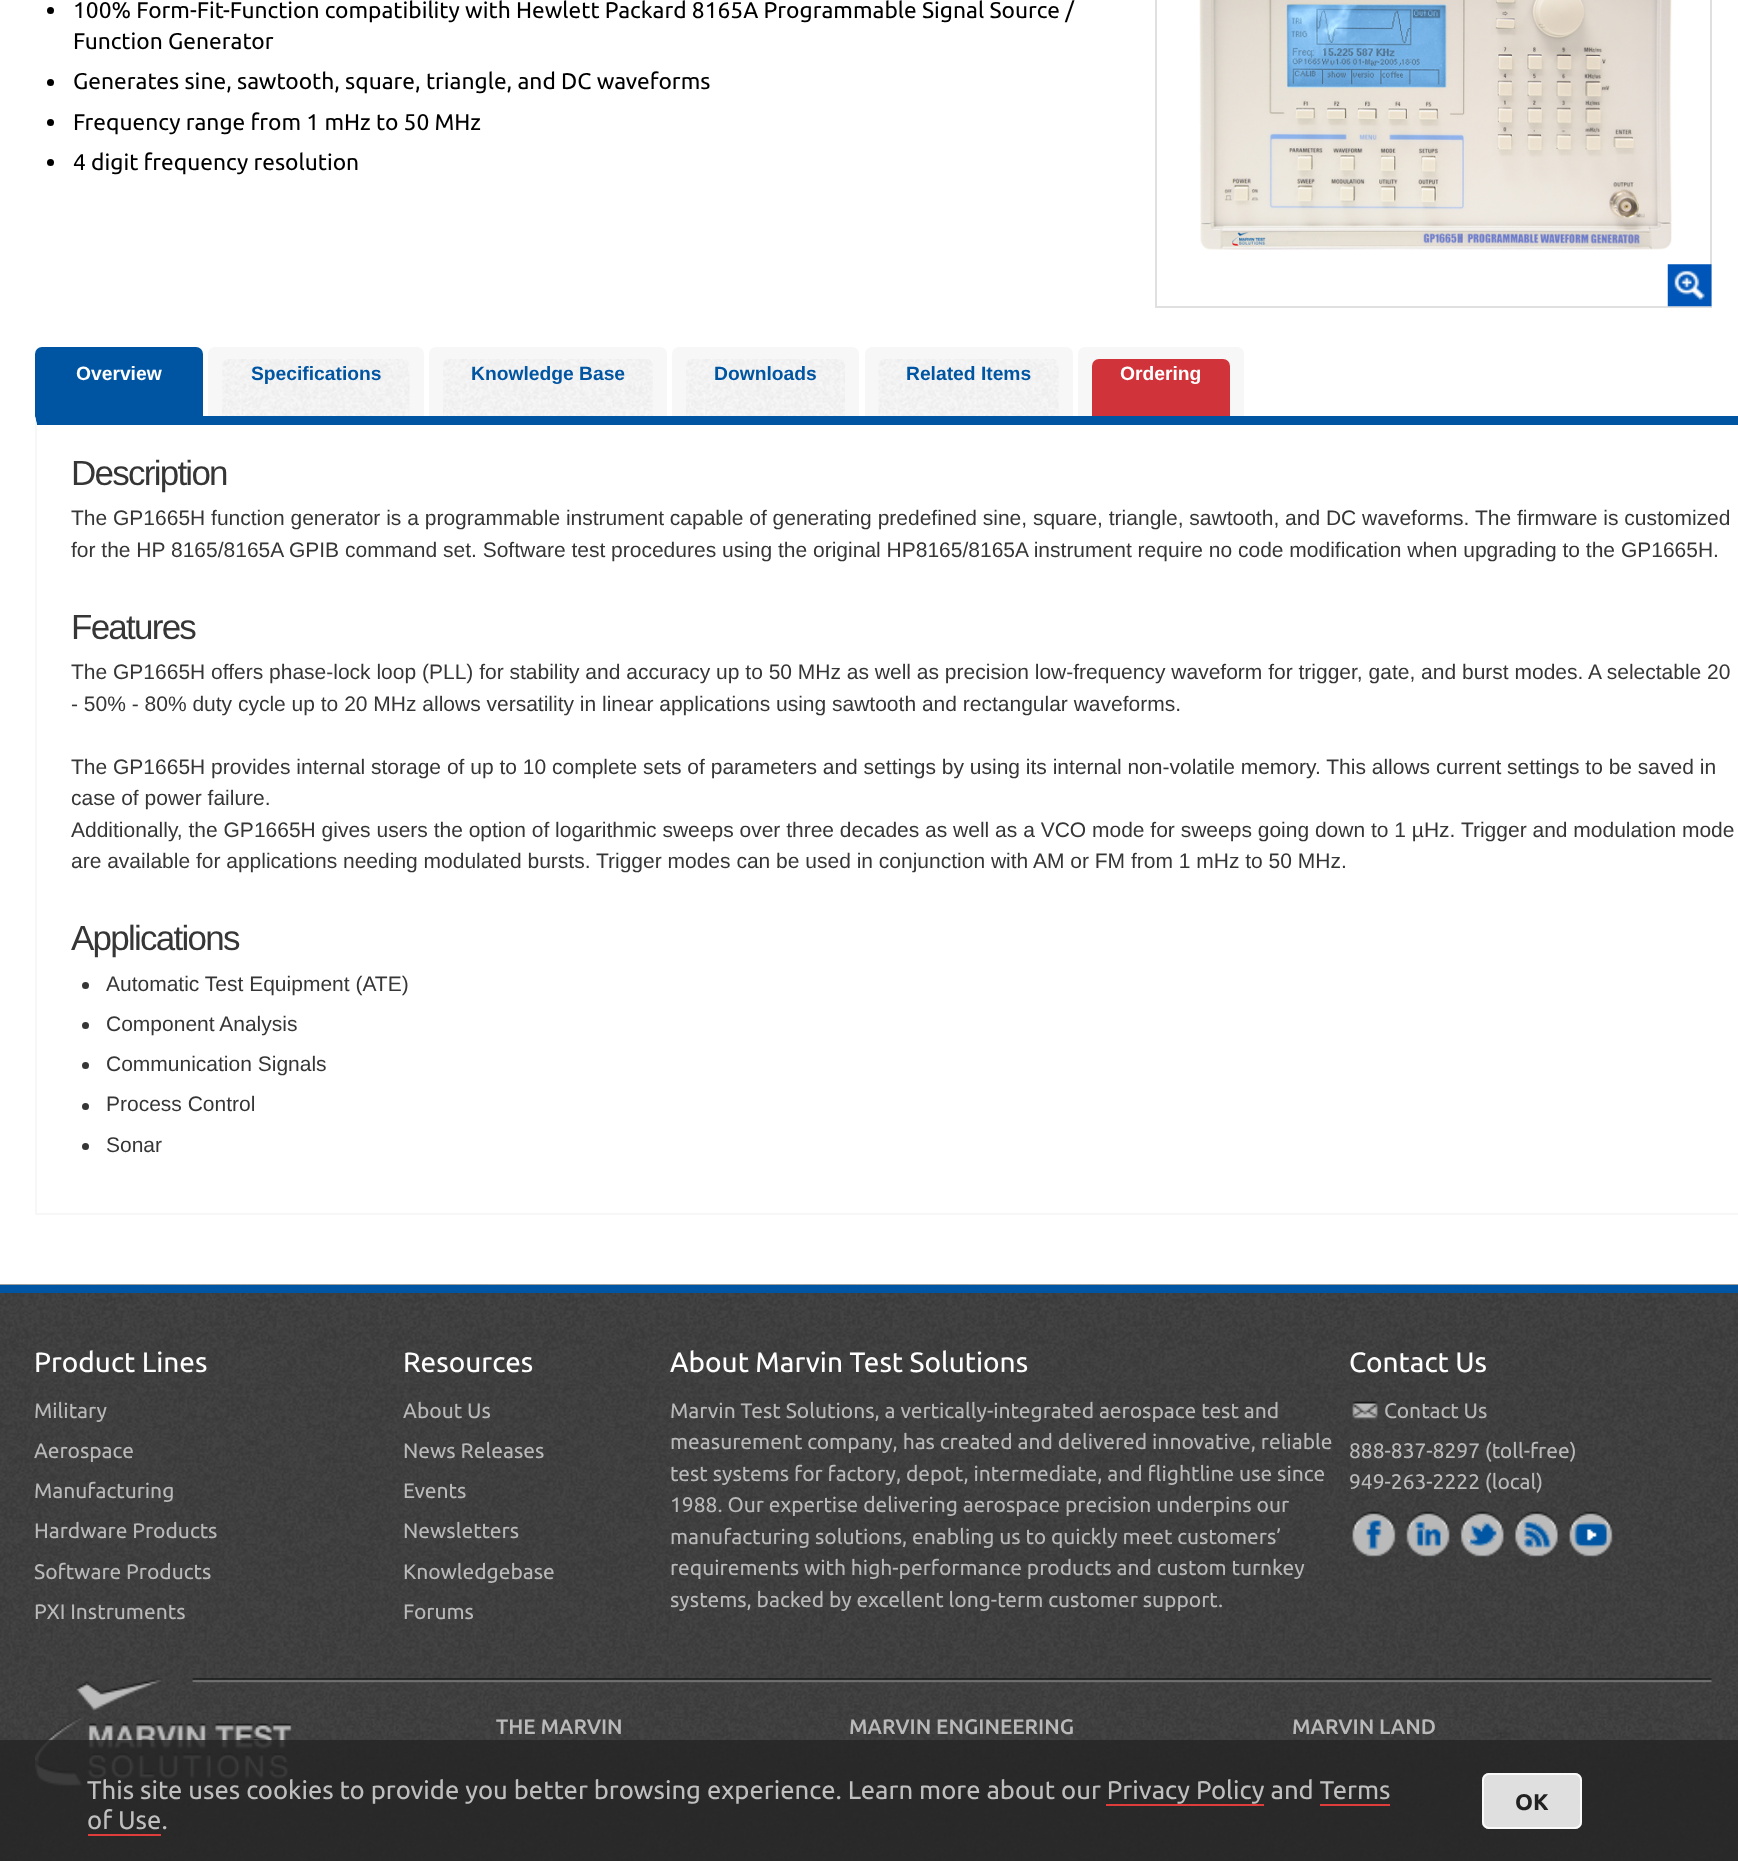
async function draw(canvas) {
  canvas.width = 1738;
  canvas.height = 1861;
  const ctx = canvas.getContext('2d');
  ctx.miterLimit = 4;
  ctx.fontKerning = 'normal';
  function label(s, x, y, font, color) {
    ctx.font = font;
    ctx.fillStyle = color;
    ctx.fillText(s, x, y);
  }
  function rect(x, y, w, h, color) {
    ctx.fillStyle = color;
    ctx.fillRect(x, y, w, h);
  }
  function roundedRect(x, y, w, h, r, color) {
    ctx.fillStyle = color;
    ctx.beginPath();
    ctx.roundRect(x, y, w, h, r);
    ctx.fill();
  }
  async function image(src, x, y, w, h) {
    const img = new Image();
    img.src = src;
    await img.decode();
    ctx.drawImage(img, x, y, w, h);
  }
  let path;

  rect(0, 0, 1738, 1861, '#fff');
  ctx.fillStyle = '#000';
  ctx.beginPath();
  ctx.arc(50.5, 10.5, 3.5, 0, 2 * Math.PI);
  ctx.fill();
  label('100% Form-Fit-Function compatibility with Hewlett Packard 8165A Programmable Signal Source /', 73, 18, '22.75px Ubuntu', '#000');
  label('Function Generator', 73, 49, '22.75px Ubuntu', '#000');
  ctx.beginPath();
  ctx.arc(50.5, 82.5, 3.5, 0, 2 * Math.PI);
  ctx.fill();
  label('Generates sine, sawtooth, square, triangle, and DC waveforms', 73, 89, '22.75px Ubuntu', '#000');
  ctx.beginPath();
  ctx.arc(50.5, 122.5, 3.5, 0, 2 * Math.PI);
  ctx.fill();
  label('Frequency range from 1 mHz to 50 MHz', 73, 130, '22.75px Ubuntu', '#000');
  ctx.beginPath();
  ctx.arc(50.5, 162.5, 3.5, 0, 2 * Math.PI);
  ctx.fill();
  label('4 digit frequency resolution', 73, 170, '22.75px Ubuntu', '#000');
  ctx.strokeStyle = '#e0e0e0';
  ctx.lineWidth = 2;
  ctx.strokeRect(1156, -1, 555, 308);
  await image('assets/img1.png', 1199, 0, 473, 250);
  await image('assets/img2.png', 1667, 264, 45, 43);
  ctx.fillStyle = '#0055a2';
  ctx.beginPath();
  ctx.roundRect(35, 347, 168, 70, [7, 7, 0, 0]);
  ctx.fill();
  label('Overview', 76, 380, 'bold 19.25px Liberation Sans', '#fff');
  ctx.fillStyle = '#f7f7f7';
  ctx.beginPath();
  ctx.roundRect(208, 347, 216, 70, [7, 7, 0, 0]);
  ctx.fill();
  await image('assets/img3.png', 222, 359, 188, 57);
  label('Specifications', 251, 380, 'bold 19.25px Liberation Sans', '#0055a2');
  ctx.fillStyle = '#f7f7f7';
  ctx.beginPath();
  ctx.roundRect(429, 347, 238, 70, [7, 7, 0, 0]);
  ctx.fill();
  await image('assets/img4.png', 443, 359, 210, 57);
  label('Knowledge Base', 471, 380, 'bold 19.25px Liberation Sans', '#0055a2');
  ctx.fillStyle = '#f7f7f7';
  ctx.beginPath();
  ctx.roundRect(672, 347, 187, 70, [7, 7, 0, 0]);
  ctx.fill();
  await image('assets/img5.png', 686, 359, 159, 57);
  label('Downloads', 714, 380, 'bold 19.25px Liberation Sans', '#0055a2');
  ctx.fillStyle = '#f7f7f7';
  ctx.beginPath();
  ctx.roundRect(865, 347, 208, 70, [7, 7, 0, 0]);
  ctx.fill();
  await image('assets/img6.png', 878, 359, 181, 57);
  label('Related Items', 906, 380, 'bold 19.25px Liberation Sans', '#0055a2');
  ctx.fillStyle = '#f7f7f7';
  ctx.beginPath();
  ctx.roundRect(1078, 347, 166, 70, [7, 7, 0, 0]);
  ctx.fill();
  ctx.fillStyle = '#d0343a';
  ctx.beginPath();
  ctx.roundRect(1092, 359, 138, 58, [7, 7, 0, 0]);
  ctx.fill();
  label('Ordering', 1120, 380, 'bold 19.25px Liberation Sans', '#fff');
  ctx.fillStyle = '#0055a2';
  path = new Path2D('M35 416H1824L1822 425H37Z');
  ctx.fill(path);
  rect(35, 1213, 1703, 2, '#f7f7f7');
  path = new Path2D('M35 1214V416L37 425V1213Z');
  ctx.fill(path);
  ctx.letterSpacing = '-1.75px';
  label('Description', 71, 485, '35px Liberation Sans', '#363636');
  ctx.letterSpacing = '0px';
  label('The GP1665H function generator is a programmable instrument capable of generating predefined sine, square, triangle, sawtooth, and DC waveforms. The firmware is customized', 71, 525, '21px Liberation Sans', '#363636');
  label('for the HP 8165/8165A GPIB command set. Software test procedures using the original HP8165/8165A instrument require no code modification when upgrading to the GP1665H.', 71, 557, '21px Liberation Sans', '#363636');
  ctx.letterSpacing = '-1.75px';
  label('Features', 71, 639, '35px Liberation Sans', '#363636');
  ctx.letterSpacing = '0px';
  label('The GP1665H offers phase-lock loop (PLL) for stability and accuracy up to 50 MHz as well as precision low-frequency waveform for trigger, gate, and burst modes. A selectable 20', 71, 679, '21px Liberation Sans', '#363636');
  label('- 50% - 80% duty cycle up to 20 MHz allows versatility in linear applications using sawtooth and rectangular waveforms.', 71, 711, '21px Liberation Sans', '#363636');
  label('The GP1665H provides internal storage of up to 10 complete sets of parameters and settings by using its internal non-volatile memory. This allows current settings to be saved in', 71, 774, '21px Liberation Sans', '#363636');
  label('case of power failure.', 71, 805, '21px Liberation Sans', '#363636');
  label('Additionally, the GP1665H gives users the option of logarithmic sweeps over three decades as well as a VCO mode for sweeps going down to 1 µHz. Trigger and modulation mode', 71, 837, '21px Liberation Sans', '#363636');
  label('are available for applications needing modulated bursts. Trigger modes can be used in conjunction with AM or FM from 1 mHz to 50 MHz.', 71, 868, '21px Liberation Sans', '#363636');
  ctx.letterSpacing = '-1.75px';
  label('Applications', 71, 950, '35px Liberation Sans', '#363636');
  ctx.beginPath();
  ctx.arc(85.5, 985.5, 3.5, 0, 2 * Math.PI);
  ctx.fill();
  ctx.letterSpacing = '0px';
  label('Automatic Test Equipment (ATE)', 106, 991, '21px Liberation Sans', '#363636');
  ctx.beginPath();
  ctx.arc(85.5, 1025.5, 3.5, 0, 2 * Math.PI);
  ctx.fill();
  label('Component Analysis', 106, 1031, '21px Liberation Sans', '#363636');
  ctx.beginPath();
  ctx.arc(85.5, 1065.5, 3.5, 0, 2 * Math.PI);
  ctx.fill();
  label('Communication Signals', 106, 1071, '21px Liberation Sans', '#363636');
  ctx.beginPath();
  ctx.arc(85.5, 1106.5, 3.5, 0, 2 * Math.PI);
  ctx.fill();
  label('Process Control', 106, 1111, '21px Liberation Sans', '#363636');
  ctx.beginPath();
  ctx.arc(85.5, 1146.5, 3.5, 0, 2 * Math.PI);
  ctx.fill();
  label('Sonar', 106, 1152, '21px Liberation Sans', '#363636');
  await image('assets/img7.png', 0, 1284, 1738, 577);
  rect(0, 1285, 1738, 8, '#0056a2');
  label('Product Lines', 34, 1372, '28px Ubuntu', '#fff');
  label('Military', 34, 1418, '21px Ubuntu', '#b9b9b9');
  label('Aerospace', 34, 1458, '21px Ubuntu', '#b9b9b9');
  label('Manufacturing', 34, 1498, '21px Ubuntu', '#b9b9b9');
  label('Hardware Products', 34, 1538, '21px Ubuntu', '#b9b9b9');
  label('Software Products', 34, 1579, '21px Ubuntu', '#b9b9b9');
  label('PXI Instruments', 34, 1619, '21px Ubuntu', '#b9b9b9');
  label('Resources', 403, 1372, '28px Ubuntu', '#fff');
  label('About Us', 403, 1418, '21px Ubuntu', '#b9b9b9');
  label('News Releases', 403, 1458, '21px Ubuntu', '#b9b9b9');
  label('Events', 403, 1498, '21px Ubuntu', '#b9b9b9');
  label('Newsletters', 403, 1538, '21px Ubuntu', '#b9b9b9');
  label('Knowledgebase', 403, 1579, '21px Ubuntu', '#b9b9b9');
  label('Forums', 403, 1619, '21px Ubuntu', '#b9b9b9');
  label('About Marvin Test Solutions', 670, 1372, '28px Ubuntu', '#fff');
  label('Marvin Test Solutions, a vertically-integrated aerospace test and', 670, 1418, '21px Ubuntu', '#b9b9b9');
  label('measurement company, has created and delivered innovative, reliable', 670, 1449, '21px Ubuntu', '#b9b9b9');
  label('test systems for factory, depot, intermediate, and flightline use since', 670, 1481, '21px Ubuntu', '#b9b9b9');
  label('1988. Our expertise delivering aerospace precision underpins our', 670, 1512, '21px Ubuntu', '#b9b9b9');
  label('manufacturing solutions, enabling us to quickly meet customers’', 670, 1544, '21px Ubuntu', '#b9b9b9');
  label('requirements with high-performance products and custom turnkey', 670, 1575, '21px Ubuntu', '#b9b9b9');
  label('systems, backed by excellent long-term customer support.', 670, 1607, '21px Ubuntu', '#b9b9b9');
  label('Contact Us', 1349, 1372, '28px Ubuntu', '#fff');
  await image('assets/img8.png', 1352, 1401, 26, 19);
  label('Contact Us', 1384, 1418, '21px Ubuntu', '#b9b9b9');
  label('888-837-8297 (toll-free)', 1349, 1458, '21px Ubuntu', '#b9b9b9');
  label('949-263-2222 (local)', 1349, 1489, '21px Ubuntu', '#b9b9b9');
  await image('assets/img9.png', 1352, 1511, 44, 46);
  await image('assets/img10.png', 1406, 1511, 44, 46);
  await image('assets/img11.png', 1460, 1511, 44, 46);
  await image('assets/img12.png', 1515, 1511, 43, 46);
  await image('assets/img13.png', 1569, 1511, 44, 46);
  await image('assets/img14.png', 35, 1678, 1677, 108);
  label('THE MARVIN', 496, 1734, '500 21px Ubuntu', '#b9b9b9');
  label('MARVIN ENGINEERING', 849, 1734, '500 21px Ubuntu', '#b9b9b9');
  label('MARVIN LAND', 1292, 1734, '500 21px Ubuntu', '#b9b9b9');
  rect(0, 1740, 1738, 121, '#262626d9');
  label('This site uses cookies to provide you better browsing experience. Learn more about our Privacy Policy and Terms', 87, 1799, '25.67px Ubuntu', '#bfbfbf');
  rect(1106, 1804, 158, 2, '#df3c3c');
  label('of Use.', 87, 1829, '25.67px Ubuntu', '#bfbfbf');
  rect(1320, 1804, 70, 2, '#df3c3c');
  rect(88, 1834, 73, 2, '#df3c3c');
  roundedRect(1482, 1773, 100, 56, 7, '#dfdfdf');
  ctx.beginPath();
  ctx.roundRect(1483, 1774, 98, 54, 6);
  ctx.strokeStyle = '#ffffffd9';
  ctx.stroke();
  label('OK', 1515, 1810, 'bold 22.75px Ubuntu', '#212121');
}

draw(document.querySelector('canvas'));
